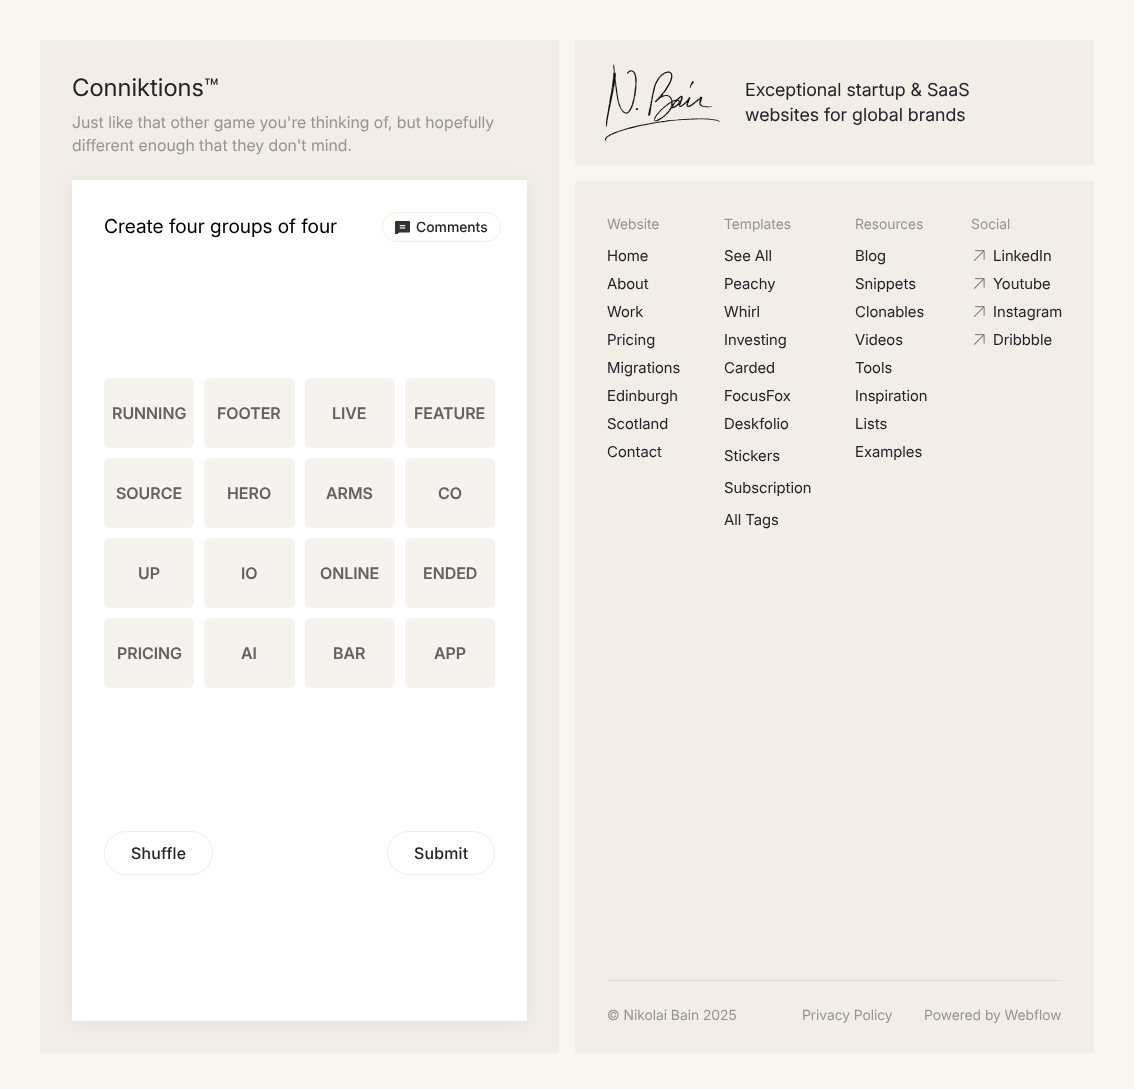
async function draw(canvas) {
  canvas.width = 1134;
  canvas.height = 1089;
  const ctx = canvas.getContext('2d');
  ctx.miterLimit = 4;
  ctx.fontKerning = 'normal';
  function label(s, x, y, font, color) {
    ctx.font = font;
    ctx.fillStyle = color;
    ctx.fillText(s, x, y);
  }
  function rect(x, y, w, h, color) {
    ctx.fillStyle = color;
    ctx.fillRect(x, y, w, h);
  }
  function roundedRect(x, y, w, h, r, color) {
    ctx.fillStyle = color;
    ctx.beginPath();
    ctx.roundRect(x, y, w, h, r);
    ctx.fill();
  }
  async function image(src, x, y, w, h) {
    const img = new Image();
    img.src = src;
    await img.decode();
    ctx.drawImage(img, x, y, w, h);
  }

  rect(0, 0, 1134, 1089, '#f9f6f1');
  rect(40, 40, 519, 1013, '#f2ede6');
  label('Conniktions™', 72, 96, '24px Inter', '#222227');
  label('Just like that other game you\'re thinking of, but hopefully', 72, 128, '16px Inter', '#97948f');
  label('different enough that they don\'t mind.', 72, 151, '16px Inter', '#97948f');
  ctx.fillStyle = '#0000000d';
  ctx.filter = 'blur(10px)';
  ctx.beginPath();
  ctx.rect(72, 182, 455, 841);
  ctx.fill();
  ctx.filter = 'none';
  rect(72, 180, 455, 841, '#fff');
  label('Create four groups of four', 104, 233, '19.25px Inter', '#000');
  ctx.beginPath();
  ctx.roundRect(382.5, 212.5, 118, 29, 14.5);
  ctx.strokeStyle = '#f2ede6';
  ctx.stroke();
  await image('assets/img1.png', 395, 221, 15, 13);
  label('Comments', 416, 232, '500 14px Inter', '#222227');
  roundedRect(104, 378, 90, 70, 6, '#f6f2ed');
  label('RUNNING', 112, 419, '600 16px Inter', '#626265');
  roundedRect(204, 378, 91, 70, 6, '#f6f2ed');
  label('FOOTER', 217, 419, '600 16px Inter', '#626265');
  roundedRect(305, 378, 90, 70, 6, '#f6f2ed');
  label('LIVE', 332, 419, '600 16px Inter', '#626265');
  roundedRect(405, 378, 90, 70, 6, '#f6f2ed');
  label('FEATURE', 414, 419, '600 16px Inter', '#626265');
  roundedRect(104, 458, 90, 70, 6, '#f6f2ed');
  label('SOURCE', 116, 499, '600 16px Inter', '#626265');
  roundedRect(204, 458, 91, 70, 6, '#f6f2ed');
  label('HERO', 227, 499, '600 16px Inter', '#626265');
  roundedRect(305, 458, 90, 70, 6, '#f6f2ed');
  label('ARMS', 326, 499, '600 16px Inter', '#626265');
  roundedRect(405, 458, 90, 70, 6, '#f6f2ed');
  label('CO', 438, 499, '600 16px Inter', '#626265');
  roundedRect(104, 538, 90, 70, 6, '#f6f2ed');
  label('UP', 138, 579, '600 16px Inter', '#626265');
  roundedRect(204, 538, 91, 70, 6, '#f6f2ed');
  label('IO', 241, 579, '600 16px Inter', '#626265');
  roundedRect(305, 538, 90, 70, 6, '#f6f2ed');
  label('ONLINE', 320, 579, '600 16px Inter', '#626265');
  roundedRect(405, 538, 90, 70, 6, '#f6f2ed');
  label('ENDED', 423, 579, '600 16px Inter', '#626265');
  roundedRect(104, 618, 90, 70, 6, '#f6f2ed');
  label('PRICING', 117, 659, '600 16px Inter', '#626265');
  roundedRect(204, 618, 91, 70, 6, '#f6f2ed');
  label('AI', 241, 659, '600 16px Inter', '#626265');
  roundedRect(305, 618, 90, 70, 6, '#f6f2ed');
  label('BAR', 333, 659, '600 16px Inter', '#626265');
  roundedRect(405, 618, 90, 70, 6, '#f6f2ed');
  label('APP', 434, 659, '600 16px Inter', '#626265');
  ctx.beginPath();
  ctx.roundRect(104.5, 831.5, 108, 43, 21.5);
  ctx.stroke();
  ctx.letterSpacing = '0.25px';
  label('Shuffle', 131, 859, '500 16px Inter', '#222227');
  ctx.beginPath();
  ctx.roundRect(387.5, 831.5, 107, 43, 21.5);
  ctx.stroke();
  label('Submit', 414, 859, '500 16px Inter', '#222227');
  rect(575, 40, 519, 125, '#f2ede6');
  await image('assets/img2.png', 605, 64, 115, 77);
  ctx.letterSpacing = '0px';
  label('Exceptional startup & SaaS', 745, 96, '18px Inter', '#222227');
  label('websites for global brands', 745, 121, '18px Inter', '#222227');
  rect(575, 181, 519, 872, '#f2ede6');
  label('Website', 607, 229, '14px Inter', '#97948f');
  label('Home', 607, 261, '15px Inter', '#222227');
  label('About', 607, 289, '15px Inter', '#222227');
  label('Work', 607, 317, '15px Inter', '#222227');
  label('Pricing', 607, 345, '15px Inter', '#222227');
  label('Migrations', 607, 373, '15px Inter', '#222227');
  label('Edinburgh', 607, 401, '15px Inter', '#222227');
  label('Scotland', 607, 429, '15px Inter', '#222227');
  label('Contact', 607, 457, '15px Inter', '#222227');
  label('Templates', 724, 229, '14px Inter', '#97948f');
  label('See All', 724, 261, '15px Inter', '#222227');
  label('Peachy', 724, 289, '15px Inter', '#222227');
  label('Whirl', 724, 317, '15px Inter', '#222227');
  label('Investing', 724, 345, '15px Inter', '#222227');
  label('Carded', 724, 373, '15px Inter', '#222227');
  label('FocusFox', 724, 401, '15px Inter', '#222227');
  label('Deskfolio', 724, 429, '15px Inter', '#222227');
  label('Stickers', 724, 461, '15px Inter', '#222227');
  label('Subscription', 724, 493, '15px Inter', '#222227');
  label('All Tags', 724, 525, '15px Inter', '#222227');
  label('Resources', 855, 229, '14px Inter', '#97948f');
  label('Blog', 855, 261, '15px Inter', '#222227');
  label('Snippets', 855, 289, '15px Inter', '#222227');
  label('Clonables', 855, 317, '15px Inter', '#222227');
  label('Videos', 855, 345, '15px Inter', '#222227');
  label('Tools', 855, 373, '15px Inter', '#222227');
  label('Inspiration', 855, 401, '15px Inter', '#222227');
  label('Lists', 855, 429, '15px Inter', '#222227');
  label('Examples', 855, 457, '15px Inter', '#222227');
  label('Social', 971, 229, '14px Inter', '#97948f');
  await image('assets/img3.png', 973, 250, 12, 11);
  label('LinkedIn', 993, 261, '15px Inter', '#222227');
  await image('assets/img3.png', 973, 278, 12, 11);
  label('Youtube', 993, 289, '15px Inter', '#222227');
  await image('assets/img3.png', 973, 306, 12, 11);
  label('Instagram', 993, 317, '15px Inter', '#222227');
  await image('assets/img3.png', 973, 334, 12, 11);
  label('Dribbble', 993, 345, '15px Inter', '#222227');
  rect(607, 980, 455, 1, '#e0dbd4');
  label('© Nikolai Bain 2025', 607, 1020, '14px Inter', '#97948f');
  label('Privacy Policy', 802, 1020, '14px Inter', '#97948f');
  label('Powered by Webflow', 924, 1020, '14px Inter', '#97948f');
}

draw(document.querySelector('canvas'));
